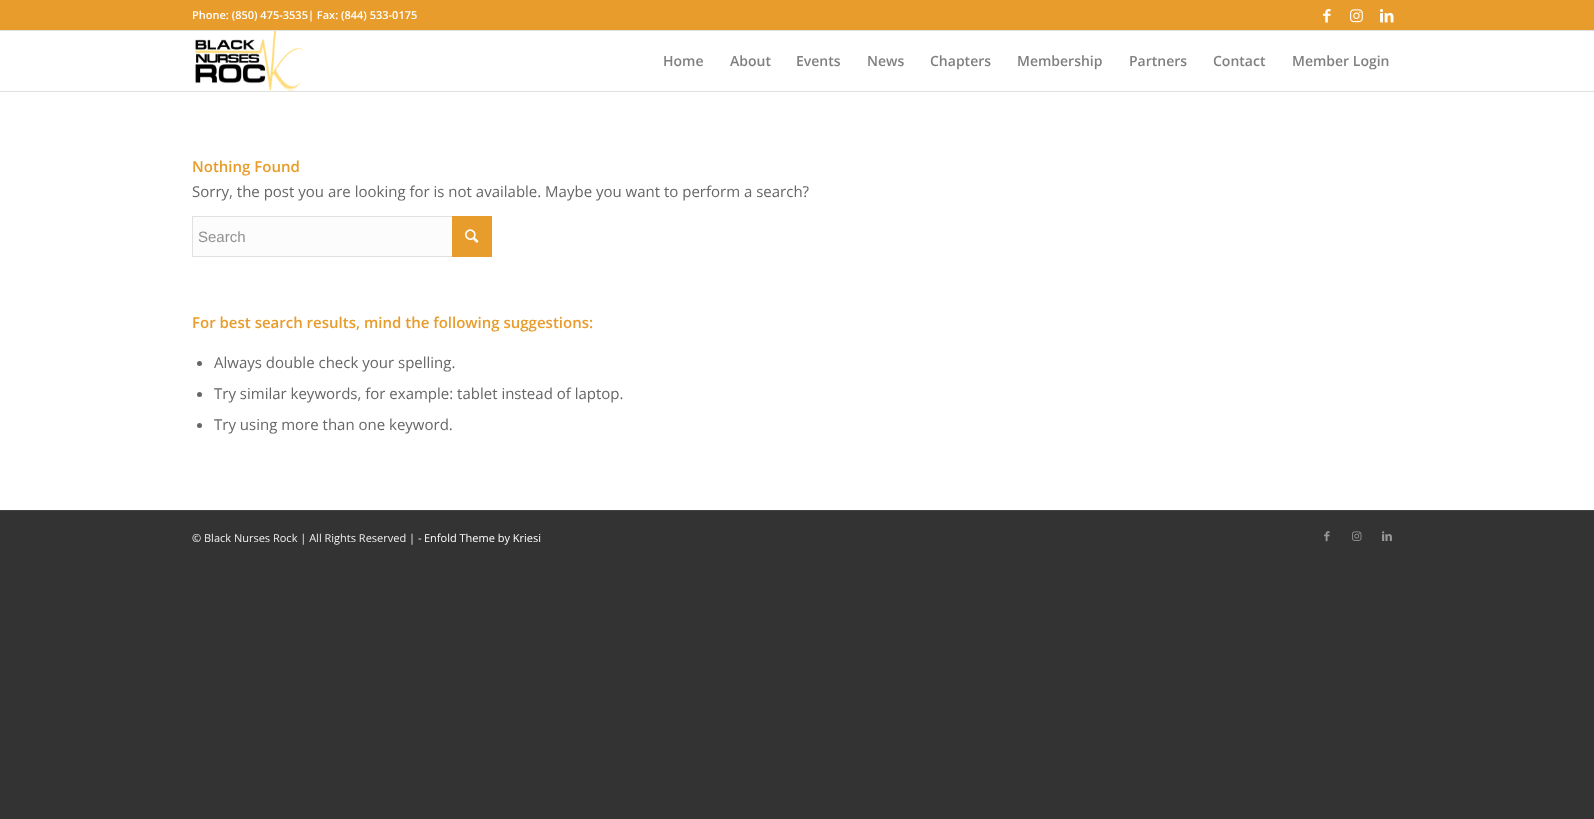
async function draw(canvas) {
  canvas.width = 1594;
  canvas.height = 819;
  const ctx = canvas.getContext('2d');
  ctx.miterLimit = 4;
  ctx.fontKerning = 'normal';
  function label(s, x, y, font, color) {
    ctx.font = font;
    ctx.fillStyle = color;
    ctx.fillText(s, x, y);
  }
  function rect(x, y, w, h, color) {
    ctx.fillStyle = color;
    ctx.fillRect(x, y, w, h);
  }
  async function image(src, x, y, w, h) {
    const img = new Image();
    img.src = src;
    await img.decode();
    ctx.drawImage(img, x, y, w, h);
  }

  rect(0, 0, 1594, 819, '#333');
  rect(0, 0, 1594, 30, '#e89c2b');
  rect(0, 30, 1594, 1, '#e1e1e1');
  label('Phone: (850) 475-3535| Fax: (844) 533-0175', 192, 19, '600 11px Open Sans', '#fff');
  await image('assets/img1.png', 1323, 9, 8, 14);
  await image('assets/img2.png', 1350, 9, 13, 14);
  await image('assets/img3.png', 1380, 9, 14, 14);
  rect(0, 91, 1594, 1, '#e1e1e1');
  rect(0, 31, 1594, 59, '#fff');
  rect(0, 90, 1594, 1, '#fefefe');
  await image('assets/img4.png', 194, 31, 110, 60);
  label('Home', 663, 66, '600 14px Open Sans', '#808080');
  label('About', 730, 66, '600 14px Open Sans', '#808080');
  label('Events', 796, 66, '600 14px Open Sans', '#808080');
  label('News', 867, 66, '600 14px Open Sans', '#808080');
  label('Chapters', 930, 66, '600 14px Open Sans', '#808080');
  label('Membership', 1017, 66, '600 14px Open Sans', '#808080');
  label('Partners', 1129, 66, '600 14px Open Sans', '#808080');
  label('Contact', 1213, 66, '600 14px Open Sans', '#808080');
  label('Member Login', 1292, 66, '600 14px Open Sans', '#808080');
  rect(0, 92, 1594, 418, '#fff');
  label('Nothing Found', 192, 172, '600 15px Open Sans', '#e89c2b');
  label('Sorry, the post you are looking for is not available. Maybe you want to perform a search?', 192, 197, '15px Open Sans', '#666');
  rect(193, 217, 259, 39, '#fcfcfc');
  ctx.strokeStyle = '#e1e1e1';
  ctx.strokeRect(192.5, 216.5, 299, 40);
  label('Search', 198, 242, '15px Liberation Sans', '#919191');
  rect(452, 216, 40, 41, '#e89c2b');
  await image('assets/img5.png', 465, 229, 14, 14);
  label('For best search results, mind the following suggestions:', 192, 328, '600 15px Open Sans', '#e89c2b');
  ctx.fillStyle = '#666';
  ctx.beginPath();
  ctx.arc(199.5, 363.5, 2.5, 0, 2 * Math.PI);
  ctx.fill();
  label('Always double check your spelling.', 214, 368, '15px Open Sans', '#666');
  ctx.beginPath();
  ctx.arc(199.5, 394.5, 2.5, 0, 2 * Math.PI);
  ctx.fill();
  label('Try similar keywords, for example: tablet instead of laptop.', 214, 399, '15px Open Sans', '#666');
  ctx.beginPath();
  ctx.arc(199.5, 425.5, 2.5, 0, 2 * Math.PI);
  ctx.fill();
  label('Try using more than one keyword.', 214, 430, '15px Open Sans', '#666');
  rect(0, 510, 1594, 1, '#444');
  label('© Black Nurses Rock | All Rights Reserved | -', 192, 542, '11px Open Sans', '#eee');
  label('Enfold Theme by Kriesi', 424, 542, '11px Open Sans', '#fff');
  await image('assets/img6.png', 1324, 531, 6, 11);
  await image('assets/img7.png', 1352, 531, 10, 10);
  await image('assets/img8.png', 1382, 531, 10, 10);
}

draw(document.querySelector('canvas'));
